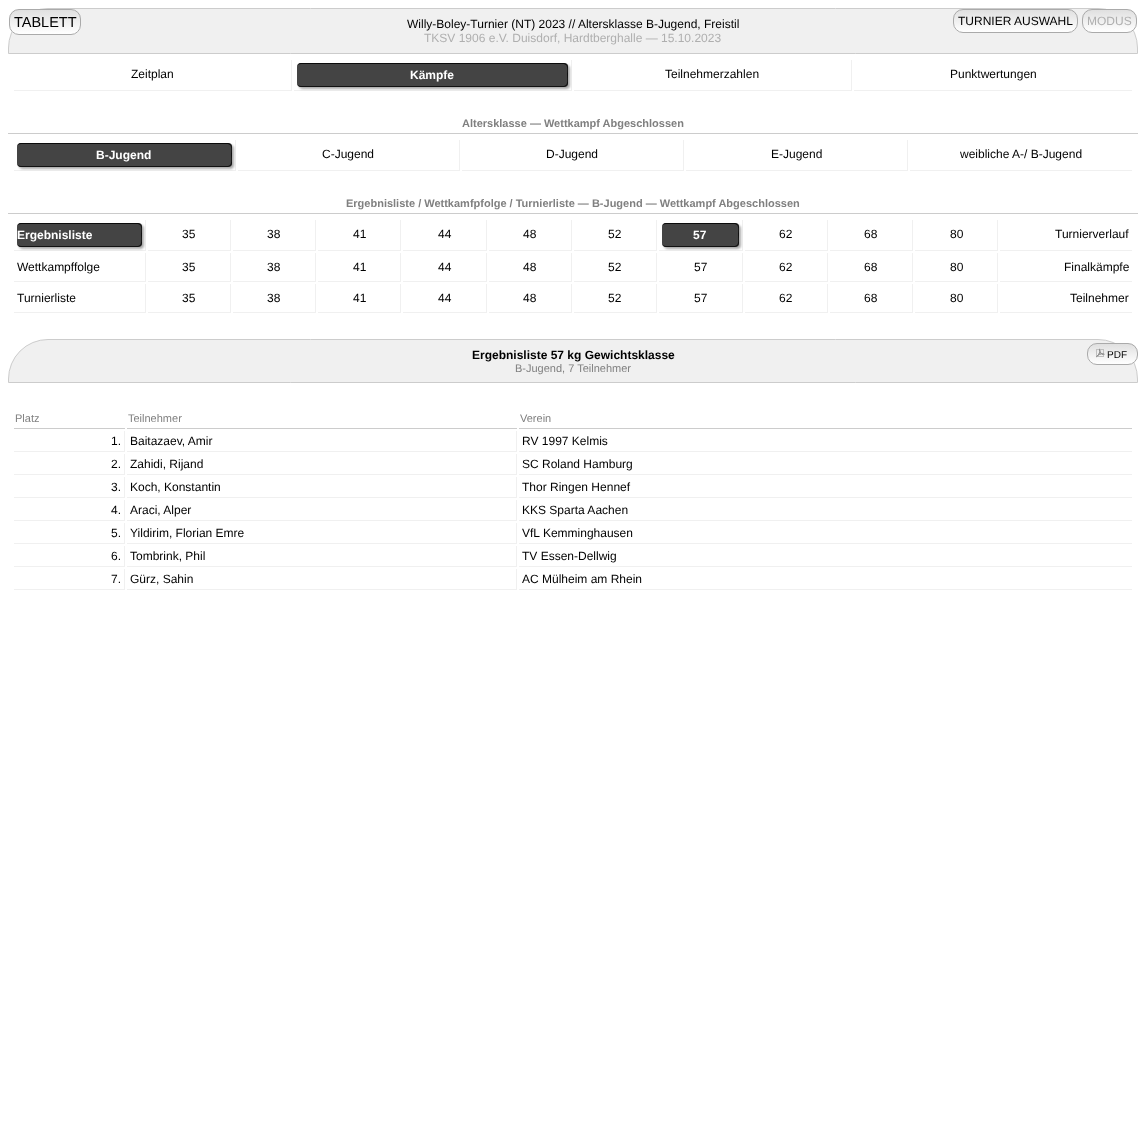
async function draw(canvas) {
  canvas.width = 1146;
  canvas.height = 1127;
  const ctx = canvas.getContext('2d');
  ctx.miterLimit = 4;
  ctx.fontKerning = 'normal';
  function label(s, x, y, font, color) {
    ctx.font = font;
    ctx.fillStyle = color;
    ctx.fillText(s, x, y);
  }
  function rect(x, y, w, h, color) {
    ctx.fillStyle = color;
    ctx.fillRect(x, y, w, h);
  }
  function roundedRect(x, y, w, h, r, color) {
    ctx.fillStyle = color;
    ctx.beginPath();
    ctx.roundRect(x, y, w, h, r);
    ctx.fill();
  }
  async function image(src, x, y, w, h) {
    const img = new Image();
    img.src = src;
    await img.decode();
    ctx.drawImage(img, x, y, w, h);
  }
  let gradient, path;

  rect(0, 0, 1146, 1127, '#fff');
  ctx.fillStyle = '#f0f0f0';
  ctx.beginPath();
  ctx.roundRect(8.5, 8.5, 1129, 45, [39.5, 39.5, 0, 0]);
  ctx.fill();
  ctx.strokeStyle = '#ccc';
  ctx.stroke();
  ctx.save();
  ctx.beginPath();
  ctx.roundRect(9, 9, 72, 26, 10);
  ctx.clip();
  gradient = ctx.createLinearGradient(45, 34, 45, 10);
  gradient.addColorStop(0, '#fff');
  gradient.addColorStop(1, '#e0e0e0');
  ctx.fillStyle = gradient;
  ctx.fillRect(9, 10, 72, 24);
  ctx.restore();
  ctx.beginPath();
  ctx.roundRect(9.5, 9.5, 71, 25, 9.5);
  ctx.strokeStyle = '#aaa';
  ctx.stroke();
  label('TABLETT', 14, 27, '14.5px Liberation Sans', '#000');
  label('Willy-Boley-Turnier (NT) 2023 // Altersklasse B-Jugend, Freistil', 407, 28, '12px Liberation Sans', '#000');
  label('TKSV 1906 e.V. Duisdorf, Hardtberghalle — 15.10.2023', 424, 42, '12px Liberation Sans', '#afafaf');
  ctx.save();
  ctx.beginPath();
  ctx.roundRect(953, 9, 125, 24, 10);
  ctx.clip();
  gradient = ctx.createLinearGradient(1016, 32, 1016, 10);
  gradient.addColorStop(0, '#fff');
  gradient.addColorStop(1, '#e0e0e0');
  ctx.fillStyle = gradient;
  ctx.fillRect(953, 10, 125, 22);
  ctx.restore();
  ctx.beginPath();
  ctx.roundRect(953.5, 9.5, 124, 23, 9.5);
  ctx.stroke();
  label('TURNIER AUSWAHL', 958, 25, '12px Liberation Sans', '#000');
  ctx.save();
  ctx.beginPath();
  ctx.roundRect(1082, 9, 55, 24, 10);
  ctx.clip();
  gradient = ctx.createLinearGradient(1110, 32, 1110, 10);
  gradient.addColorStop(0, '#fff');
  gradient.addColorStop(1, '#e0e0e0');
  ctx.fillStyle = gradient;
  ctx.fillRect(1082, 10, 55, 22);
  ctx.restore();
  ctx.beginPath();
  ctx.roundRect(1082.5, 9.5, 54, 23, 9.5);
  ctx.stroke();
  label('MODUS', 1087, 25, '12px Liberation Sans', '#afafaf');
  rect(291, 60, 1, 31, '#f0f0f0');
  rect(14, 90, 278, 1, '#f0f0f0');
  label('Zeitplan', 131, 78, '12px Liberation Sans', '#000');
  rect(571, 60, 1, 31, '#f0f0f0');
  rect(294, 90, 278, 1, '#f0f0f0');
  ctx.fillStyle = '#aaa';
  ctx.filter = 'blur(1px)';
  ctx.beginPath();
  ctx.roundRect(299, 65, 271, 24, 4);
  ctx.fill();
  ctx.filter = 'none';
  roundedRect(297, 63, 271, 24, 4, '#444');
  ctx.fillStyle = '#0b0b0b';
  path = new Path2D('M301 63C299 63 297 65 297 67C297 65 299 64 301 64H564L566 65L567 64L564 63Z');
  ctx.fill(path);
  ctx.fillStyle = '#111';
  path = new Path2D('M566 85C568 83.5 567 77 567 75C567 73 568 66.5 566 65L567 64C567.5 65 568 66 568 67V83C568 84 567.5 85 567 86Z');
  ctx.fill(path);
  path = new Path2D('M301 87H564C565 87 566 86 567 86L566 85L564 86H301C299 86 297 85 297 83C297 85 299 87 301 87Z');
  ctx.fill(path);
  label('Kämpfe', 410, 79, 'bold 12px Liberation Sans', '#fff');
  rect(851, 60, 1, 31, '#f0f0f0');
  rect(574, 90, 278, 1, '#f0f0f0');
  label('Teilnehmerzahlen', 665, 78, '12px Liberation Sans', '#000');
  rect(854, 90, 278, 1, '#f0f0f0');
  label('Punktwertungen', 950, 78, '12px Liberation Sans', '#000');
  rect(8, 133, 1130, 1, '#ccc');
  label('Altersklasse — Wettkampf Abgeschlossen', 462, 127, 'bold 11px Liberation Sans', '#808080');
  rect(235, 140, 1, 31, '#f0f0f0');
  rect(14, 170, 222, 1, '#f0f0f0');
  ctx.fillStyle = '#aaa';
  ctx.filter = 'blur(1px)';
  ctx.beginPath();
  ctx.roundRect(19, 145, 215, 24, 4);
  ctx.fill();
  ctx.filter = 'none';
  roundedRect(17, 143, 215, 24, 4, '#444');
  ctx.fillStyle = '#0b0b0b';
  path = new Path2D('M21 143C19 143 17 145 17 147C17 145 19 144 21 144H228L230 145L231 144L228 143Z');
  ctx.fill(path);
  ctx.fillStyle = '#111';
  path = new Path2D('M230 165C232 163.5 231 157 231 155C231 153 232 146.5 230 145L231 144C231.5 145 232 146 232 147V163C232 164 231.5 165 231 166Z');
  ctx.fill(path);
  path = new Path2D('M21 167H228C229 167 230 166 231 166L230 165L228 166H21C19 166 17 165 17 163C17 165 19 167 21 167Z');
  ctx.fill(path);
  label('B-Jugend', 96, 159, 'bold 12px Liberation Sans', '#fff');
  rect(459, 140, 1, 31, '#f0f0f0');
  rect(238, 170, 222, 1, '#f0f0f0');
  label('C-Jugend', 322, 158, '12px Liberation Sans', '#000');
  rect(683, 140, 1, 31, '#f0f0f0');
  rect(462, 170, 222, 1, '#f0f0f0');
  label('D-Jugend', 546, 158, '12px Liberation Sans', '#000');
  rect(907, 140, 1, 31, '#f0f0f0');
  rect(686, 170, 222, 1, '#f0f0f0');
  label('E-Jugend', 771, 158, '12px Liberation Sans', '#000');
  rect(910, 170, 222, 1, '#f0f0f0');
  label('weibliche A-/ B-Jugend', 960, 158, '12px Liberation Sans', '#000');
  rect(8, 213, 1130, 1, '#ccc');
  label('Ergebnisliste / Wettkamfpfolge / Turnierliste — B-Jugend — Wettkampf Abgeschlossen', 346, 207, 'bold 11px Liberation Sans', '#808080');
  rect(145, 220, 1, 31, '#f0f0f0');
  rect(14, 250, 132, 1, '#f0f0f0');
  ctx.fillStyle = '#aaa';
  ctx.filter = 'blur(1px)';
  ctx.beginPath();
  ctx.roundRect(19, 225, 125, 24, 4);
  ctx.fill();
  ctx.filter = 'none';
  roundedRect(17, 223, 125, 24, 4, '#444');
  ctx.fillStyle = '#0b0b0b';
  path = new Path2D('M21 223C19 223 17 225 17 227C17 225 19 224 21 224H138L140 225L141 224L138 223Z');
  ctx.fill(path);
  ctx.fillStyle = '#111';
  path = new Path2D('M140 245C142 243.5 141 237 141 235C141 233 142 226.5 140 225L141 224C141.5 225 142 226 142 227V243C142 244 141.5 245 141 246Z');
  ctx.fill(path);
  path = new Path2D('M21 247H138L141 246L140 245L138 246H21C19 246 17 245 17 243C17 245 19 247 21 247Z');
  ctx.fill(path);
  label('Ergebnisliste', 17, 239, 'bold 12px Liberation Sans', '#fff');
  rect(230, 220, 1, 31, '#f0f0f0');
  rect(148, 250, 83, 1, '#f0f0f0');
  label('35', 182, 238, '12px Liberation Sans', '#000');
  rect(315, 220, 1, 31, '#f0f0f0');
  rect(233, 250, 83, 1, '#f0f0f0');
  label('38', 267, 238, '12px Liberation Sans', '#000');
  rect(400, 220, 1, 31, '#f0f0f0');
  rect(318, 250, 83, 1, '#f0f0f0');
  label('41', 353, 238, '12px Liberation Sans', '#000');
  rect(486, 220, 1, 31, '#f0f0f0');
  rect(403, 250, 84, 1, '#f0f0f0');
  label('44', 438, 238, '12px Liberation Sans', '#000');
  rect(571, 220, 1, 31, '#f0f0f0');
  rect(489, 250, 83, 1, '#f0f0f0');
  label('48', 523, 238, '12px Liberation Sans', '#000');
  rect(656, 220, 1, 31, '#f0f0f0');
  rect(574, 250, 83, 1, '#f0f0f0');
  label('52', 608, 238, '12px Liberation Sans', '#000');
  rect(742, 220, 1, 31, '#f0f0f0');
  rect(659, 250, 84, 1, '#f0f0f0');
  ctx.fillStyle = '#aaa';
  ctx.filter = 'blur(1px)';
  ctx.beginPath();
  ctx.roundRect(664, 225, 77, 24, 4);
  ctx.fill();
  ctx.filter = 'none';
  roundedRect(662, 223, 77, 24, 4, '#444');
  ctx.fillStyle = '#0b0b0b';
  path = new Path2D('M666 223C664 223 662 225 662 227C662 225 664 224 666 224H735L737 225L738 224L735 223Z');
  ctx.fill(path);
  ctx.fillStyle = '#111';
  path = new Path2D('M737 245C739 243.5 738 237 738 235C738 233 739 226.5 737 225L738 224C738.5 225 739 226 739 227V243C739 244 738.5 245 738 246Z');
  ctx.fill(path);
  path = new Path2D('M666 247H735L738 246L737 245L735 246H666C664 246 662 245 662 243C662 245 664 247 666 247Z');
  ctx.fill(path);
  label('57', 693, 239, 'bold 12px Liberation Sans', '#fff');
  rect(827, 220, 1, 31, '#f0f0f0');
  rect(745, 250, 83, 1, '#f0f0f0');
  label('62', 779, 238, '12px Liberation Sans', '#000');
  rect(912, 220, 1, 31, '#f0f0f0');
  rect(830, 250, 83, 1, '#f0f0f0');
  label('68', 864, 238, '12px Liberation Sans', '#000');
  rect(997, 220, 1, 31, '#f0f0f0');
  rect(915, 250, 83, 1, '#f0f0f0');
  label('80', 950, 238, '12px Liberation Sans', '#000');
  rect(1000, 250, 132, 1, '#f0f0f0');
  label('Turnierverlauf', 1055, 238, '12px Liberation Sans', '#000');
  rect(145, 253, 1, 29, '#f0f0f0');
  rect(14, 281, 132, 1, '#f0f0f0');
  label('Wettkampffolge', 17, 271, '12px Liberation Sans', '#000');
  rect(230, 253, 1, 29, '#f0f0f0');
  rect(148, 281, 83, 1, '#f0f0f0');
  label('35', 182, 271, '12px Liberation Sans', '#000');
  rect(315, 253, 1, 29, '#f0f0f0');
  rect(233, 281, 83, 1, '#f0f0f0');
  label('38', 267, 271, '12px Liberation Sans', '#000');
  rect(400, 253, 1, 29, '#f0f0f0');
  rect(318, 281, 83, 1, '#f0f0f0');
  label('41', 353, 271, '12px Liberation Sans', '#000');
  rect(486, 253, 1, 29, '#f0f0f0');
  rect(403, 281, 84, 1, '#f0f0f0');
  label('44', 438, 271, '12px Liberation Sans', '#000');
  rect(571, 253, 1, 29, '#f0f0f0');
  rect(489, 281, 83, 1, '#f0f0f0');
  label('48', 523, 271, '12px Liberation Sans', '#000');
  rect(656, 253, 1, 29, '#f0f0f0');
  rect(574, 281, 83, 1, '#f0f0f0');
  label('52', 608, 271, '12px Liberation Sans', '#000');
  rect(742, 253, 1, 29, '#f0f0f0');
  rect(659, 281, 84, 1, '#f0f0f0');
  label('57', 694, 271, '12px Liberation Sans', '#000');
  rect(827, 253, 1, 29, '#f0f0f0');
  rect(745, 281, 83, 1, '#f0f0f0');
  label('62', 779, 271, '12px Liberation Sans', '#000');
  rect(912, 253, 1, 29, '#f0f0f0');
  rect(830, 281, 83, 1, '#f0f0f0');
  label('68', 864, 271, '12px Liberation Sans', '#000');
  rect(997, 253, 1, 29, '#f0f0f0');
  rect(915, 281, 83, 1, '#f0f0f0');
  label('80', 950, 271, '12px Liberation Sans', '#000');
  rect(1000, 281, 132, 1, '#f0f0f0');
  label('Finalkämpfe', 1064, 271, '12px Liberation Sans', '#000');
  rect(145, 284, 1, 29, '#f0f0f0');
  rect(14, 312, 132, 1, '#f0f0f0');
  label('Turnierliste', 17, 302, '12px Liberation Sans', '#000');
  rect(230, 284, 1, 29, '#f0f0f0');
  rect(148, 312, 83, 1, '#f0f0f0');
  label('35', 182, 302, '12px Liberation Sans', '#000');
  rect(315, 284, 1, 29, '#f0f0f0');
  rect(233, 312, 83, 1, '#f0f0f0');
  label('38', 267, 302, '12px Liberation Sans', '#000');
  rect(400, 284, 1, 29, '#f0f0f0');
  rect(318, 312, 83, 1, '#f0f0f0');
  label('41', 353, 302, '12px Liberation Sans', '#000');
  rect(486, 284, 1, 29, '#f0f0f0');
  rect(403, 312, 84, 1, '#f0f0f0');
  label('44', 438, 302, '12px Liberation Sans', '#000');
  rect(571, 284, 1, 29, '#f0f0f0');
  rect(489, 312, 83, 1, '#f0f0f0');
  label('48', 523, 302, '12px Liberation Sans', '#000');
  rect(656, 284, 1, 29, '#f0f0f0');
  rect(574, 312, 83, 1, '#f0f0f0');
  label('52', 608, 302, '12px Liberation Sans', '#000');
  rect(742, 284, 1, 29, '#f0f0f0');
  rect(659, 312, 84, 1, '#f0f0f0');
  label('57', 694, 302, '12px Liberation Sans', '#000');
  rect(827, 284, 1, 29, '#f0f0f0');
  rect(745, 312, 83, 1, '#f0f0f0');
  label('62', 779, 302, '12px Liberation Sans', '#000');
  rect(912, 284, 1, 29, '#f0f0f0');
  rect(830, 312, 83, 1, '#f0f0f0');
  label('68', 864, 302, '12px Liberation Sans', '#000');
  rect(997, 284, 1, 29, '#f0f0f0');
  rect(915, 312, 83, 1, '#f0f0f0');
  label('80', 950, 302, '12px Liberation Sans', '#000');
  rect(1000, 312, 132, 1, '#f0f0f0');
  label('Teilnehmer', 1070, 302, '12px Liberation Sans', '#000');
  ctx.fillStyle = '#f0f0f0';
  ctx.beginPath();
  ctx.roundRect(8.5, 339.5, 1129, 43, [39.5, 39.5, 0, 0]);
  ctx.fill();
  ctx.strokeStyle = '#ccc';
  ctx.stroke();
  label('Ergebnisliste 57 kg Gewichtsklasse', 472, 359, 'bold 12px Liberation Sans', '#000');
  label('B-Jugend, 7 Teilnehmer', 515, 372, '11px Liberation Sans', '#808080');
  ctx.save();
  ctx.beginPath();
  ctx.roundRect(1087, 343, 51, 22, 10);
  ctx.clip();
  gradient = ctx.createLinearGradient(1113, 364, 1113, 344);
  gradient.addColorStop(0, '#fff');
  gradient.addColorStop(1, '#e0e0e0');
  ctx.fillStyle = gradient;
  ctx.fillRect(1087, 344, 51, 20);
  ctx.restore();
  ctx.beginPath();
  ctx.roundRect(1087.5, 343.5, 50, 21, 9.5);
  ctx.strokeStyle = '#aaa';
  ctx.stroke();
  await image('assets/img1.png', 1096, 348, 9, 10);
  label('PDF', 1107, 358, '10px Liberation Sans', '#000');
  rect(14, 428, 111, 1, '#ccc');
  label('Platz', 15, 422, '11px Liberation Sans', '#808080');
  rect(127, 428, 390, 1, '#ccc');
  label('Teilnehmer', 128, 422, '11px Liberation Sans', '#808080');
  rect(519, 428, 613, 1, '#ccc');
  label('Verein', 520, 422, '11px Liberation Sans', '#808080');
  rect(124, 431, 1, 21, '#f0f0f0');
  rect(14, 451, 111, 1, '#f0f0f0');
  label('1.', 111, 445, '12px Liberation Sans', '#000');
  rect(516, 431, 1, 21, '#f0f0f0');
  rect(127, 451, 390, 1, '#f0f0f0');
  label('Baitazaev, Amir', 130, 445, '12px Liberation Sans', '#000');
  rect(519, 451, 613, 1, '#f0f0f0');
  label('RV 1997 Kelmis', 522, 445, '12px Liberation Sans', '#000');
  rect(124, 454, 1, 21, '#f0f0f0');
  rect(14, 474, 111, 1, '#f0f0f0');
  label('2.', 111, 468, '12px Liberation Sans', '#000');
  rect(516, 454, 1, 21, '#f0f0f0');
  rect(127, 474, 390, 1, '#f0f0f0');
  label('Zahidi, Rijand', 130, 468, '12px Liberation Sans', '#000');
  rect(519, 474, 613, 1, '#f0f0f0');
  label('SC Roland Hamburg', 522, 468, '12px Liberation Sans', '#000');
  rect(124, 477, 1, 21, '#f0f0f0');
  rect(14, 497, 111, 1, '#f0f0f0');
  label('3.', 111, 491, '12px Liberation Sans', '#000');
  rect(516, 477, 1, 21, '#f0f0f0');
  rect(127, 497, 390, 1, '#f0f0f0');
  label('Koch, Konstantin', 130, 491, '12px Liberation Sans', '#000');
  rect(519, 497, 613, 1, '#f0f0f0');
  label('Thor Ringen Hennef', 522, 491, '12px Liberation Sans', '#000');
  rect(124, 500, 1, 21, '#f0f0f0');
  rect(14, 520, 111, 1, '#f0f0f0');
  label('4.', 111, 514, '12px Liberation Sans', '#000');
  rect(516, 500, 1, 21, '#f0f0f0');
  rect(127, 520, 390, 1, '#f0f0f0');
  label('Araci, Alper', 130, 514, '12px Liberation Sans', '#000');
  rect(519, 520, 613, 1, '#f0f0f0');
  label('KKS Sparta Aachen', 522, 514, '12px Liberation Sans', '#000');
  rect(124, 523, 1, 21, '#f0f0f0');
  rect(14, 543, 111, 1, '#f0f0f0');
  label('5.', 111, 537, '12px Liberation Sans', '#000');
  rect(516, 523, 1, 21, '#f0f0f0');
  rect(127, 543, 390, 1, '#f0f0f0');
  label('Yildirim, Florian Emre', 130, 537, '12px Liberation Sans', '#000');
  rect(519, 543, 613, 1, '#f0f0f0');
  label('VfL Kemminghausen', 522, 537, '12px Liberation Sans', '#000');
  rect(124, 546, 1, 21, '#f0f0f0');
  rect(14, 566, 111, 1, '#f0f0f0');
  label('6.', 111, 560, '12px Liberation Sans', '#000');
  rect(516, 546, 1, 21, '#f0f0f0');
  rect(127, 566, 390, 1, '#f0f0f0');
  label('Tombrink, Phil', 130, 560, '12px Liberation Sans', '#000');
  rect(519, 566, 613, 1, '#f0f0f0');
  label('TV Essen-Dellwig', 522, 560, '12px Liberation Sans', '#000');
  rect(124, 569, 1, 21, '#f0f0f0');
  rect(14, 589, 111, 1, '#f0f0f0');
  label('7.', 111, 583, '12px Liberation Sans', '#000');
  rect(516, 569, 1, 21, '#f0f0f0');
  rect(127, 589, 390, 1, '#f0f0f0');
  label('Gürz, Sahin', 130, 583, '12px Liberation Sans', '#000');
  rect(519, 589, 613, 1, '#f0f0f0');
  label('AC Mülheim am Rhein', 522, 583, '12px Liberation Sans', '#000');
}

draw(document.querySelector('canvas'));
